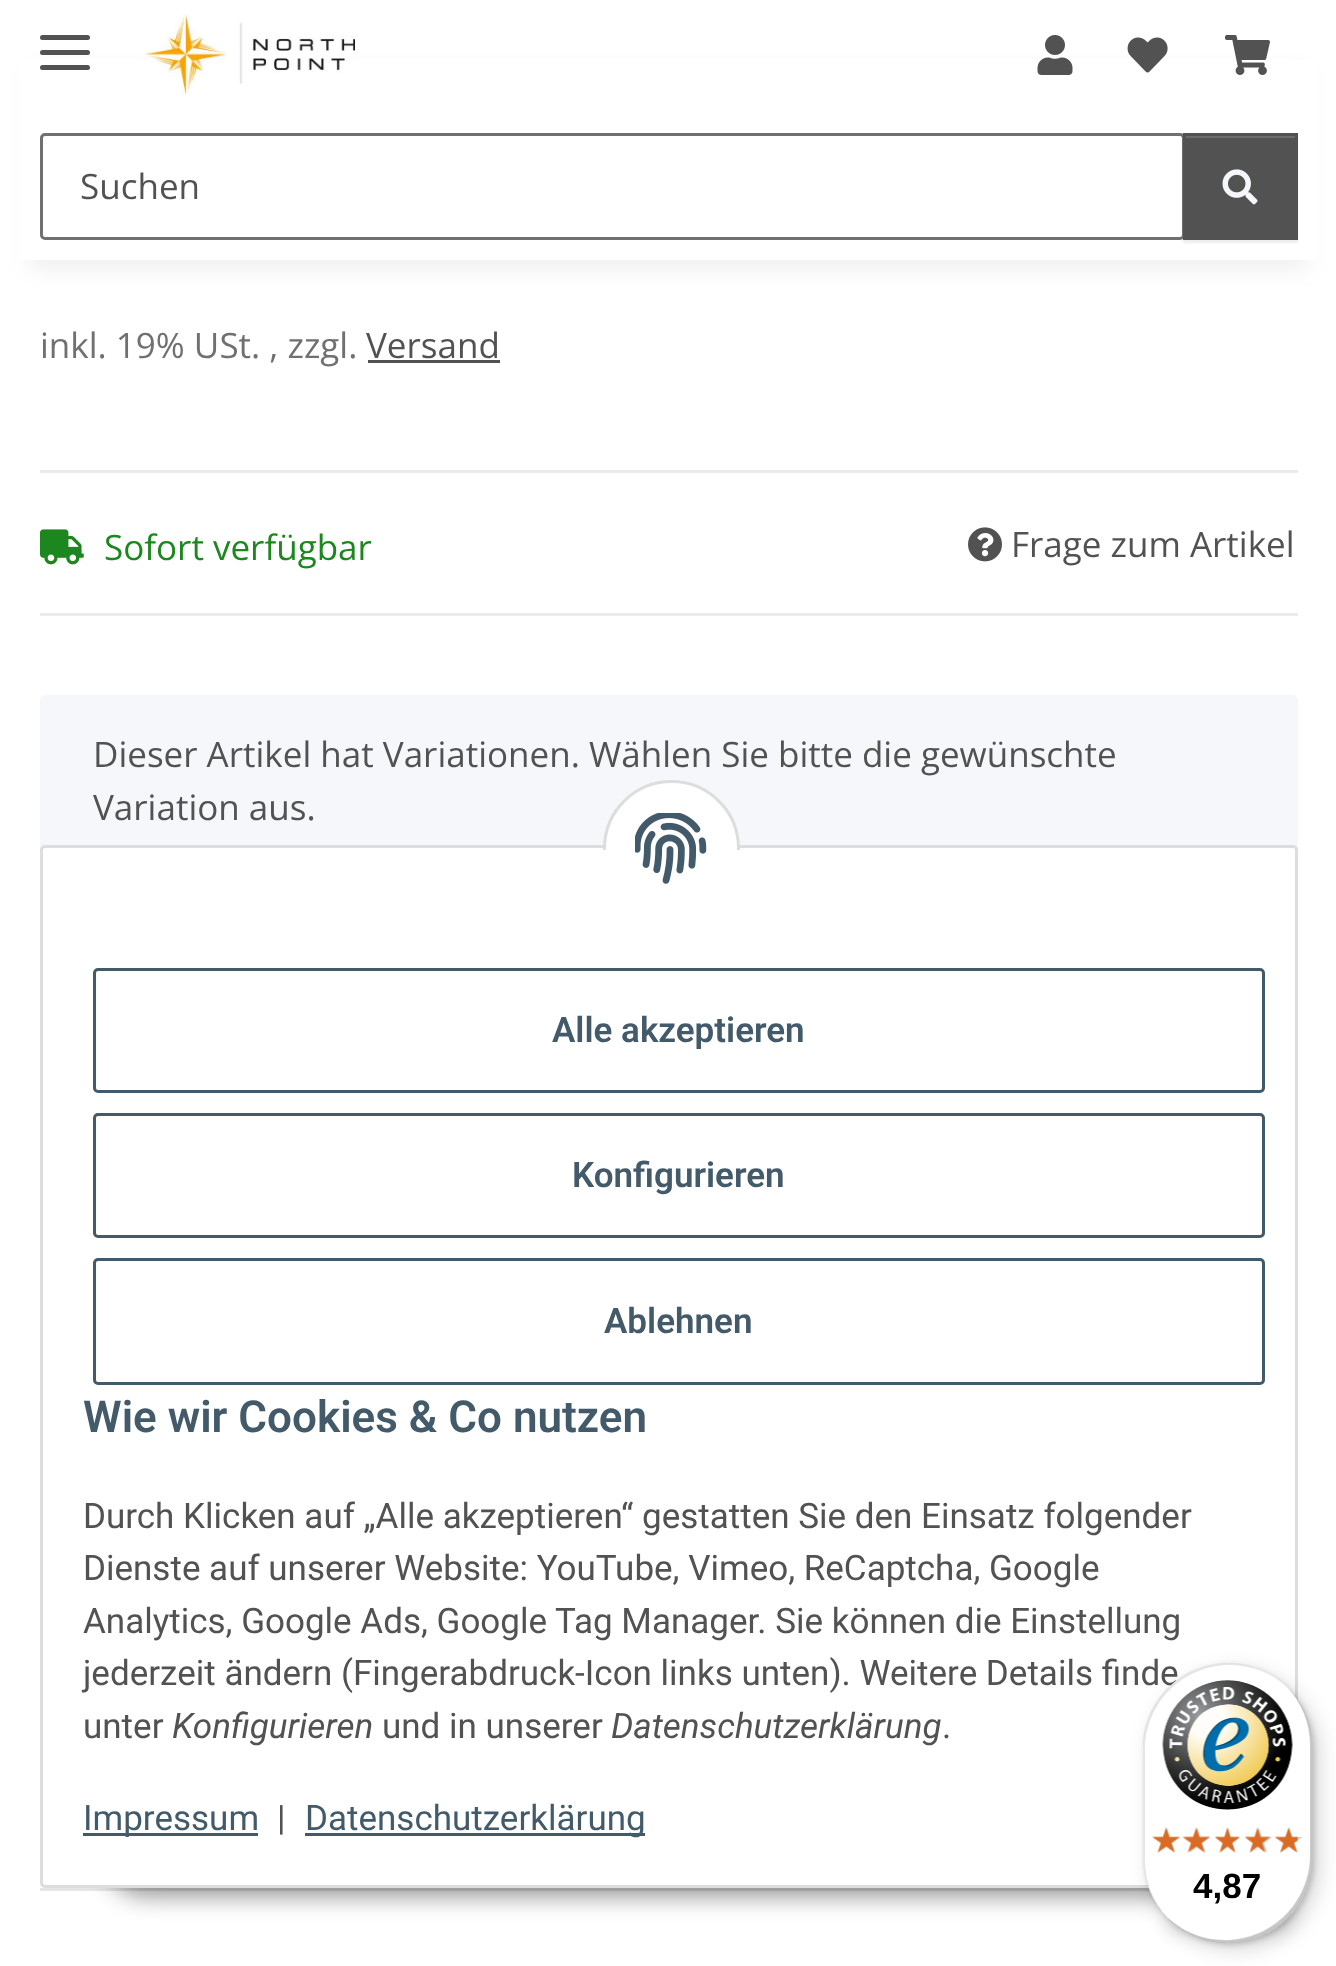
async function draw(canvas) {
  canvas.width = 1336;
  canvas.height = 1966;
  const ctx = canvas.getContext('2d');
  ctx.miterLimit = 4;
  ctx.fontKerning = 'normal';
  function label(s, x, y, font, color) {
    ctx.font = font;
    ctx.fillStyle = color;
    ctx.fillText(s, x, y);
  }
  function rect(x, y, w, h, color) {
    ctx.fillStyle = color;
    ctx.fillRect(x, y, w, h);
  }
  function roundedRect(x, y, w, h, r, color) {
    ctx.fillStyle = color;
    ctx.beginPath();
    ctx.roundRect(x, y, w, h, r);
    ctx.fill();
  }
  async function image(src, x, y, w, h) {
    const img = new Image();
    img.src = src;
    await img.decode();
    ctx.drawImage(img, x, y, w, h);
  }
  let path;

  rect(0, 0, 1336, 1966, '#fff');
  ctx.fillStyle = '#0000000f';
  ctx.filter = 'blur(11px)';
  ctx.beginPath();
  ctx.rect(30, 70, 1278, 200);
  ctx.fill();
  ctx.filter = 'none';
  rect(19, 59, 1300, 201, '#fff');
  roundedRect(40, 50, 50, 5, 2.5, '#525252');
  roundedRect(40, 35, 50, 5, 2.5, '#525252');
  roundedRect(40, 65, 50, 5, 2.5, '#525252');
  await image('assets/img1.png', 145, 14, 210, 81);
  await image('assets/img2.png', 1037, 35, 36, 40);
  await image('assets/img3.png', 1127, 37, 41, 36);
  await image('assets/img4.png', 1225, 35, 45, 40);
  ctx.beginPath();
  ctx.roundRect(41.5, 134.5, 1142, 104, 3.5);
  ctx.strokeStyle = '#707070';
  ctx.lineWidth = 3;
  ctx.stroke();
  label('Suchen', 80, 199, '35px Open Sans', '#525252');
  ctx.fillStyle = '#00000012';
  ctx.filter = 'blur(1px)';
  ctx.beginPath();
  ctx.rect(1183, 135, 115, 108);
  ctx.fill();
  ctx.filter = 'none';
  rect(1186, 138, 109, 99, '#525252');
  rect(1185, 136, 110, 2, '#6c6c6c');
  ctx.strokeStyle = '#525252';
  ctx.strokeRect(1184.5, 134.5, 112, 104);
  await image('assets/img5.png', 1222, 169, 36, 36);
  label('inkl. 19% USt. , zzgl.', 40, 358, '35px Open Sans', '#707070');
  label('Versand', 366, 358, '35px Open Sans', '#525252');
  rect(368, 360, 132, 3, '#525252');
  rect(40, 470, 1258, 3, '#ebebeb');
  rect(40, 613, 1258, 3, '#ebebeb');
  await image('assets/img6.png', 40, 529, 44, 36);
  label('Sofort verfügbar', 104, 560, '35px Open Sans', '#1c871e');
  await image('assets/img7.png', 968, 527, 34, 35);
  label('Frage zum Artikel', 1011, 557, '35px Open Sans', '#525252');
  roundedRect(40, 695, 1258, 170, 5, '#f5f7fa');
  label('Dieser Artikel hat Variationen. Wählen Sie bitte die gewünschte', 93, 767, '35px Open Sans', '#525252');
  label('Variation aus.', 93, 820, '35px Open Sans', '#525252');
  rect(40, 1888, 1110, 3, '#e6e6e6');
  ctx.fillStyle = '#00000073';
  ctx.filter = 'blur(12.5px)';
  ctx.beginPath();
  ctx.roundRect(105, 1815, 1128, 80, 40);
  ctx.fill();
  ctx.filter = 'none';
  ctx.fillStyle = '#00000033';
  ctx.filter = 'blur(10px)';
  ctx.beginPath();
  ctx.roundRect(1170, 1818, 118, 110, 5);
  ctx.fill();
  ctx.filter = 'none';
  ctx.fillStyle = '#fff';
  ctx.beginPath();
  ctx.roundRect(41.5, 846.5, 1255, 1040, 3.5);
  ctx.fill();
  ctx.strokeStyle = '#ddd';
  ctx.stroke();
  ctx.beginPath();
  ctx.roundRect(604.5, 781.5, 134, 135, 67);
  ctx.fill();
  ctx.stroke();
  rect(603, 850, 137, 68, '#fff');
  await image('assets/img8.png', 635, 813, 72, 71);
  ctx.beginPath();
  ctx.roundRect(94.5, 969.5, 1169, 122, 3.5);
  ctx.strokeStyle = '#435a6b';
  ctx.stroke();
  label('Alle akzeptieren', 552, 1042, '600 35px Roboto', '#435a6b');
  ctx.beginPath();
  ctx.roundRect(94.5, 1114.5, 1169, 122, 3.5);
  ctx.stroke();
  label('Konfigurieren', 572, 1187, '600 35px Roboto', '#435a6b');
  ctx.beginPath();
  ctx.roundRect(94.5, 1259.5, 1169, 124, 3.5);
  ctx.stroke();
  label('Ablehnen', 604, 1333, '600 35px Roboto', '#435a6b');
  label('Wie wir Cookies & Co nutzen', 83, 1432, '600 44px Roboto', '#435a6b');
  label('Durch Klicken auf „Alle akzeptieren“ gestatten Sie den Einsatz folgender', 83, 1528, '35px Roboto', '#525252');
  label('Dienste auf unserer Website: YouTube, Vimeo, ReCaptcha, Google', 83, 1580, '35px Roboto', '#525252');
  label('Analytics, Google Ads, Google Tag Manager. Sie können die Einstellung', 83, 1633, '35px Roboto', '#525252');
  label('jederzeit ändern (Fingerabdruck-Icon links unten). Weitere Details finde', 83, 1685, '35px Roboto', '#525252');
  label('unter', 83, 1738, '35px Roboto', '#525252');
  label('Konfigurieren', 172, 1738, 'italic 35px Roboto', '#525252');
  label('und in unserer', 382, 1738, '35px Roboto', '#525252');
  label('Datenschutzerklärung', 611, 1738, 'italic 35px Roboto', '#525252');
  label('.', 942, 1738, '35px Roboto', '#525252');
  rect(83, 1833, 175, 3, '#435a6b');
  label('Impressum', 83, 1830, '35px Roboto', '#435a6b');
  label('|', 277, 1830, '35px Roboto', '#525252');
  rect(305, 1833, 340, 3, '#435a6b');
  label('Datenschutzerklärung', 305, 1830, '35px Roboto', '#435a6b');
  ctx.fillStyle = '#00000026';
  ctx.filter = 'blur(10px)';
  ctx.beginPath();
  ctx.roundRect(1150, 1670, 170, 280, 85);
  ctx.fill();
  ctx.filter = 'none';
  ctx.filter = 'blur(2.5px)';
  ctx.beginPath();
  ctx.roundRect(1145, 1665, 170, 280, 85);
  ctx.fill();
  ctx.filter = 'none';
  roundedRect(1143, 1663, 170, 280, 85, '#fff');
  ctx.fillStyle = '#0000001a';
  path = new Path2D('M1230 1665C1253 1665 1273 1674 1288 1688C1273 1673 1252 1663 1228 1663C1181 1663 1143 1701 1143 1748V1858C1143 1882 1153 1903 1168 1918C1154 1903 1145 1883 1145 1860V1750C1145 1703 1183 1665 1230 1665Z');
  ctx.fill(path);
  ctx.fillStyle = '#00000033';
  path = new Path2D('M1167 1917C1182 1933 1204 1943 1228 1943C1275 1943 1313 1905 1313 1858V1748C1313 1724 1303 1702 1287 1687C1301 1702 1310 1722 1310 1745V1855C1310 1902 1272 1940 1225 1940C1202 1940 1182 1931 1167 1917Z');
  ctx.fill(path);
  ctx.fillStyle = '#32323233';
  path = new Path2D('M1168 1918C1183 1933 1204 1943 1228 1943C1275 1943 1313 1905 1313 1858V1748C1313 1724 1303 1703 1288 1688C1302 1703 1311 1723 1311 1746V1856C1311 1903 1273 1941 1226 1941C1203 1941 1183 1932 1168 1918Z');
  ctx.fill(path);
  ctx.fillStyle = '#ffffff4d';
  path = new Path2D('M1168 1918C1183 1933 1204 1943 1228 1943C1275 1943 1313 1905 1313 1858V1748C1313 1724 1303 1703 1288 1688C1302 1703 1311 1723 1311 1746V1856C1311 1903 1273 1941 1226 1941C1203 1941 1183 1932 1168 1918Z');
  ctx.fill(path);
  await image('assets/img9.png', 1162, 1680, 131, 130);
  await image('assets/img10.png', 1152, 1828, 28, 24);
  await image('assets/img11.png', 1185, 1827, 25, 26);
  await image('assets/img12.png', 1215, 1828, 25, 24);
  await image('assets/img13.png', 1245, 1827, 28, 26);
  await image('assets/img14.png', 1275, 1828, 28, 24);
  await image('assets/img15.png', 1152, 1827, 28, 26);
  await image('assets/img16.png', 1182, 1827, 28, 26);
  await image('assets/img17.png', 1215, 1827, 25, 26);
  await image('assets/img18.png', 1245, 1827, 25, 26);
  await image('assets/img19.png', 1275, 1827, 23, 26);
  label('4,87', 1193, 1898, 'bold 35px Liberation Sans', '#000');
}

draw(document.querySelector('canvas'));
